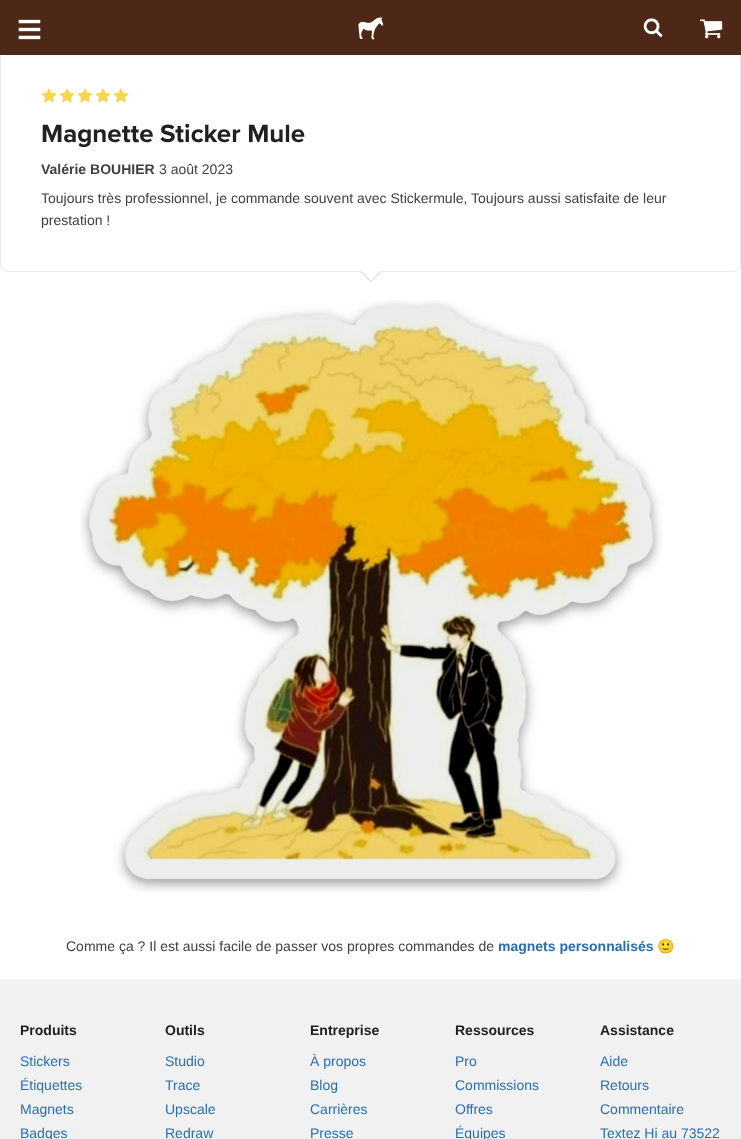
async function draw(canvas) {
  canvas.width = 741;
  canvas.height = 1139;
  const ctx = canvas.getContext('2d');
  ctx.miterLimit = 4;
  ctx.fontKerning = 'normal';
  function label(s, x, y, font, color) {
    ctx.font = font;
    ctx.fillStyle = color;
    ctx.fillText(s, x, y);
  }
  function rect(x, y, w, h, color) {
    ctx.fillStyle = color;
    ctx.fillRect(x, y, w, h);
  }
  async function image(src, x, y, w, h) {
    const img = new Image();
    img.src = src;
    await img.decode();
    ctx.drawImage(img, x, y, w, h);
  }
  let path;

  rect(0, 0, 741, 1139, '#fff');
  ctx.beginPath();
  ctx.roundRect(0.5, 47.5, 740, 224, 7.5);
  ctx.strokeStyle = '#e9e9e9';
  ctx.stroke();
  rect(0, 0, 741, 55, '#4e2817');
  await image('assets/img1.png', 18, 19, 23, 21);
  await image('assets/img2.png', 358, 16, 26, 24);
  await image('assets/img3.png', 643, 18, 20, 19);
  await image('assets/img4.png', 699, 19, 24, 20);
  await image('assets/img5.png', 41, 88, 16, 15);
  await image('assets/img5.png', 59, 88, 16, 15);
  await image('assets/img5.png', 77, 88, 16, 15);
  await image('assets/img5.png', 95, 88, 16, 15);
  await image('assets/img5.png', 113, 88, 16, 15);
  label('Magnette Sticker Mule', 41, 142, 'bold 25.9px Proxima Nova', '#202020');
  label('Valérie BOUHIER', 41, 174, 'bold 14px Liberation Sans', '#404040');
  label('3 août 2023', 159, 174, '14px Liberation Sans', '#404040');
  label('Toujours très professionnel, je commande souvent avec Stickermule, Toujours aussi satisfaite de leur', 41, 203, '14px Liberation Sans', '#404040');
  label('prestation !', 41, 225, '14px Liberation Sans', '#404040');
  ctx.fillStyle = '#ccc';
  path = new Path2D('M361 272H381L371 282Z');
  ctx.fill(path);
  ctx.fillStyle = '#fff';
  path = new Path2D('M361 271H381L371 281Z');
  ctx.fill(path);
  await image('assets/img6.png', 80, 300, 583, 592);
  label('Comme ça ? Il est aussi facile de passer vos propres commandes de', 66, 951, '14px Liberation Sans', '#404040');
  label('magnets personnalisés', 498, 951, 'bold 14px Liberation Sans', '#2a6eb2');
  label('🙂', 657, 951, '14px Noto Color Emoji', '#404040');
  rect(0, 979, 741, 160, '#f1f1f1');
  label('Produits', 20, 1035, 'bold 14px Liberation Sans', '#202020');
  label('Stickers', 20, 1066, '14px Liberation Sans', '#2a6eb2');
  label('Étiquettes', 20, 1090, '14px Liberation Sans', '#2a6eb2');
  label('Magnets', 20, 1114, '14px Liberation Sans', '#2a6eb2');
  label('Badges', 20, 1138, '14px Liberation Sans', '#2a6eb2');
  label('Outils', 165, 1035, 'bold 14px Liberation Sans', '#202020');
  label('Studio', 165, 1066, '14px Liberation Sans', '#2a6eb2');
  label('Trace', 165, 1090, '14px Liberation Sans', '#2a6eb2');
  label('Upscale', 165, 1114, '14px Liberation Sans', '#2a6eb2');
  label('Redraw', 165, 1138, '14px Liberation Sans', '#2a6eb2');
  label('Entreprise', 310, 1035, 'bold 14px Liberation Sans', '#202020');
  label('À propos', 310, 1066, '14px Liberation Sans', '#2a6eb2');
  label('Blog', 310, 1090, '14px Liberation Sans', '#2a6eb2');
  label('Carrières', 310, 1114, '14px Liberation Sans', '#2a6eb2');
  label('Presse', 310, 1138, '14px Liberation Sans', '#2a6eb2');
  label('Ressources', 455, 1035, 'bold 14px Liberation Sans', '#202020');
  label('Pro', 455, 1066, '14px Liberation Sans', '#2a6eb2');
  label('Commissions', 455, 1090, '14px Liberation Sans', '#2a6eb2');
  label('Offres', 455, 1114, '14px Liberation Sans', '#2a6eb2');
  label('Équipes', 455, 1138, '14px Liberation Sans', '#2a6eb2');
  label('Assistance', 600, 1035, 'bold 14px Liberation Sans', '#202020');
  label('Aide', 600, 1066, '14px Liberation Sans', '#2a6eb2');
  label('Retours', 600, 1090, '14px Liberation Sans', '#2a6eb2');
  label('Commentaire', 600, 1114, '14px Liberation Sans', '#2a6eb2');
  label('Textez Hi au 73522', 600, 1138, '14px Liberation Sans', '#2a6eb2');
}

draw(document.querySelector('canvas'));
